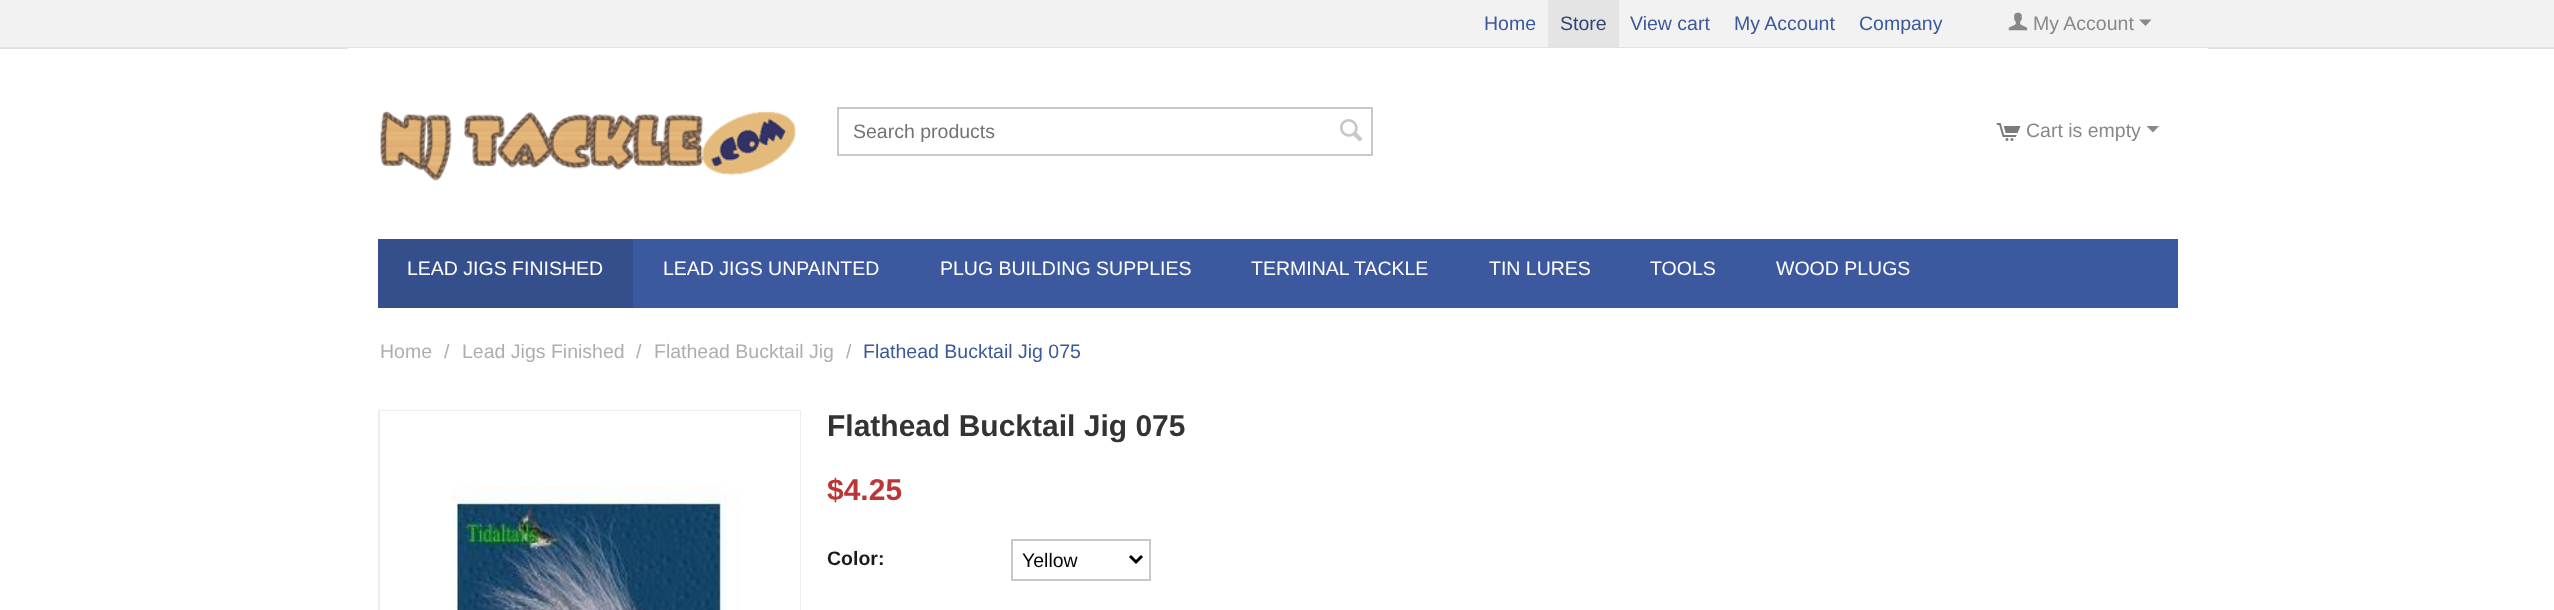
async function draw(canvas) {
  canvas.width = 2554;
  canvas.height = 610;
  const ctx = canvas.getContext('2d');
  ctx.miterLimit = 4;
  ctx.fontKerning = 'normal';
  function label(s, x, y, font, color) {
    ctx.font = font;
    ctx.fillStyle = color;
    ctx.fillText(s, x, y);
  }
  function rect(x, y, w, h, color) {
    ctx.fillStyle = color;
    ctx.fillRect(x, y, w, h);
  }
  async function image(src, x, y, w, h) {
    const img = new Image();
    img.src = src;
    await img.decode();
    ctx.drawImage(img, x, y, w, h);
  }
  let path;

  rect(0, 0, 2554, 610, '#fff');
  rect(0, 0, 2554, 47, '#f2f2f2');
  rect(0, 47, 2554, 2, '#e1e1e1');
  label('Home', 1484, 30, '19.5px Liberation Sans', '#3b5999');
  rect(1548, 0, 71, 47, '#e4e4e4');
  label('Store', 1560, 30, '19.5px Liberation Sans', '#2d4474');
  label('View cart', 1630, 30, '19.5px Liberation Sans', '#3b5999');
  label('My Account', 1734, 30, '19.5px Liberation Sans', '#3b5999');
  label('Company', 1859, 30, '19.5px Liberation Sans', '#3b5999');
  await image('assets/img1.png', 2008, 12, 20, 19);
  label('My Account', 2033, 30, '19.5px Liberation Sans', '#888');
  path = new Path2D('M2145.5 26L2139 19.5H2151.5Z');
  ctx.fill(path);
  rect(348, 48, 1860, 1, '#fff');
  await image('assets/img2.png', 380, 110, 416, 71);
  ctx.strokeStyle = '#c8c8c8';
  ctx.lineWidth = 2;
  ctx.strokeRect(838, 108, 534, 47);
  label('Search products', 853, 138, '19.5px Liberation Sans', '#737373');
  await image('assets/img3.png', 1340, 119, 23, 23);
  await image('assets/img4.png', 1996, 123, 25, 18);
  label('Cart is empty', 2026, 137, '19.5px Liberation Sans', '#888');
  path = new Path2D('M2153 132.5L2146.5 126H2159Z');
  ctx.fill(path);
  rect(633, 239, 1545, 69, '#3c599f');
  rect(378, 239, 255, 69, '#354f8c');
  label('LEAD JIGS FINISHED', 407, 275, '19.5px Liberation Sans', '#fff');
  label('LEAD JIGS UNPAINTED', 663, 275, '19.5px Liberation Sans', '#fff');
  label('PLUG BUILDING SUPPLIES', 940, 275, '19.5px Liberation Sans', '#fff');
  label('TERMINAL TACKLE', 1251, 275, '19.5px Liberation Sans', '#fff');
  label('TIN LURES', 1489, 275, '19.5px Liberation Sans', '#fff');
  label('TOOLS', 1650, 275, '19.5px Liberation Sans', '#fff');
  label('WOOD PLUGS', 1776, 275, '19.5px Liberation Sans', '#fff');
  label('Home', 380, 358, '19.5px Liberation Sans', '#aeaeae');
  label('/', 444, 358, '19.5px Liberation Sans', '#aeaeae');
  label('Lead Jigs Finished', 462, 358, '19.5px Liberation Sans', '#aeaeae');
  label('/', 636, 358, '19.5px Liberation Sans', '#aeaeae');
  label('Flathead Bucktail Jig', 654, 358, '19.5px Liberation Sans', '#aeaeae');
  label('/', 846, 358, '19.5px Liberation Sans', '#aeaeae');
  label('Flathead Bucktail Jig 075', 863, 358, '19.5px Liberation Sans', '#3b5999');
  ctx.strokeStyle = '#eee';
  ctx.strokeRect(379, 411, 421, 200);
  await image('assets/img5.png', 380, 411, 420, 199);
  label('Flathead Bucktail Jig 075', 827, 436, 'bold 30px Liberation Sans', '#333');
  label('$4.25', 827, 500, 'bold 30px Liberation Sans', '#bb3737');
  label('Color:', 827, 565, 'bold 19.5px Liberation Sans', '#1a1a1a');
  ctx.strokeStyle = '#c8c8c8';
  ctx.strokeRect(1012, 540, 138, 40);
  path = new Path2D('M1130 556L1136 562L1142 556');
  ctx.strokeStyle = '#000';
  ctx.lineWidth = 3;
  ctx.stroke(path);
  label('Yellow', 1022, 567, '19.5px Liberation Sans', '#000');
}

draw(document.querySelector('canvas'));
